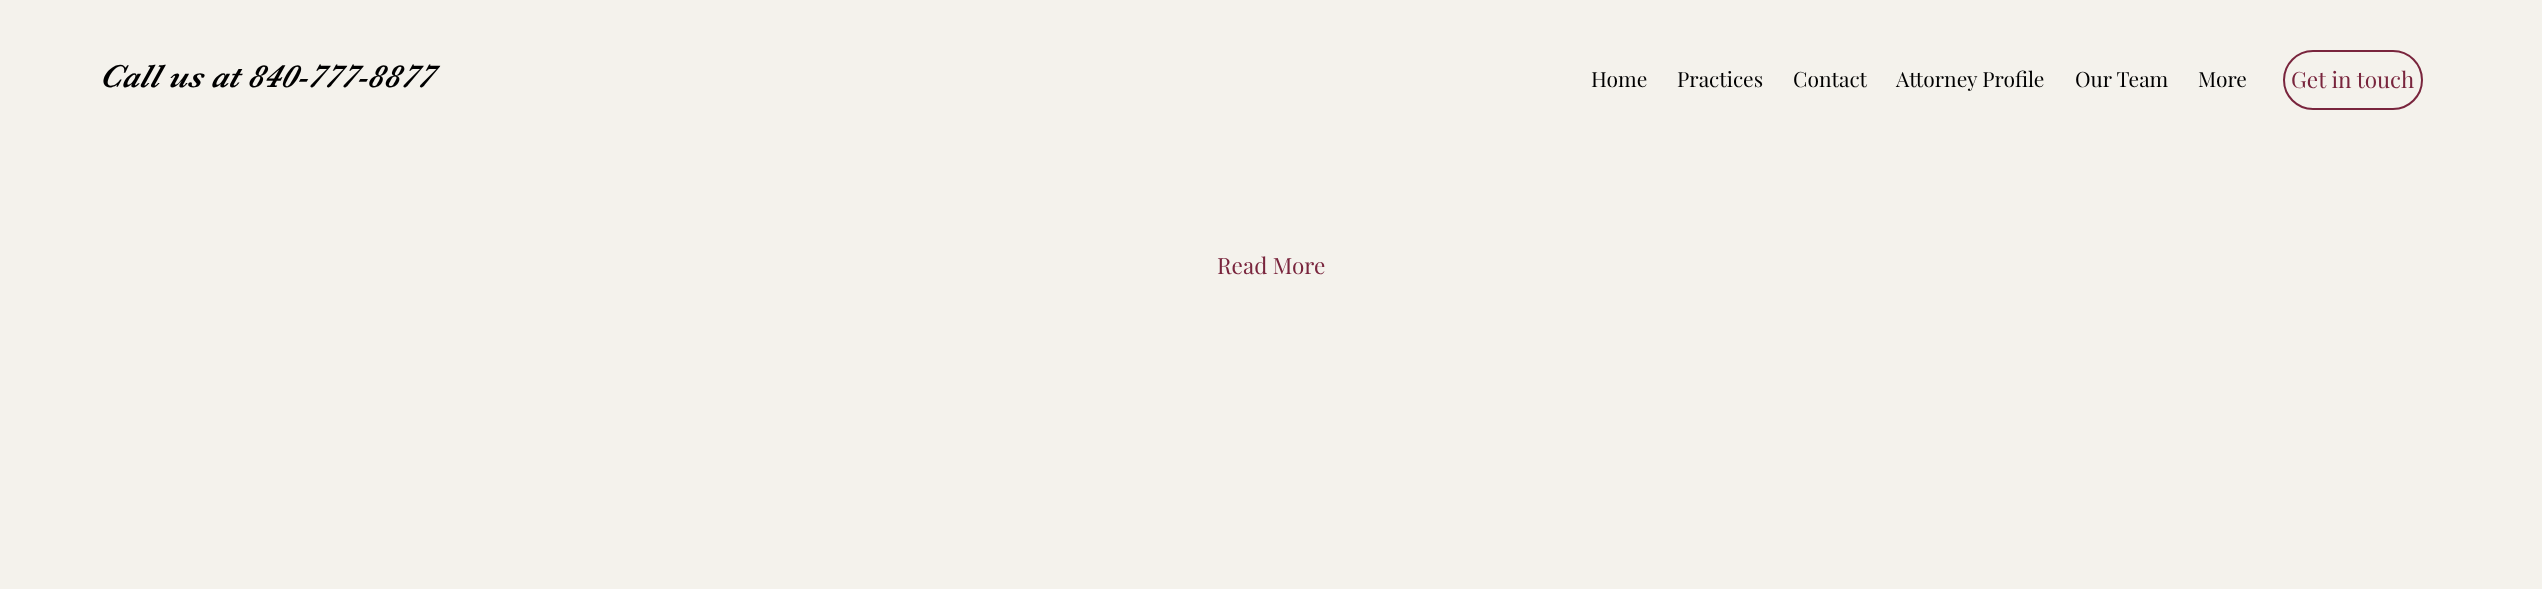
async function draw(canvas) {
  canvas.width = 2542;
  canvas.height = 589;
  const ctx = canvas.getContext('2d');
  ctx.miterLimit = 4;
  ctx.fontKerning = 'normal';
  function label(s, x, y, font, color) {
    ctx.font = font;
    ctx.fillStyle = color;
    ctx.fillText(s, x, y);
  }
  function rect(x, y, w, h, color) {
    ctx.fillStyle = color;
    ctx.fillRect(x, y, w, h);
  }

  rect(0, 0, 2542, 589, '#f4f2ec');
  label('Call us at 840-777-8877', 99, 87, 'italic 33px "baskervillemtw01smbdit"', '#000');
  label('Home', 1591, 87, '21px Playfair Display', '#000');
  label('Practices', 1677, 87, '21px Playfair Display', '#000');
  label('Contact', 1793, 87, '21px Playfair Display', '#000');
  label('Attorney Profile', 1896, 87, '21px Playfair Display', '#000');
  label('Our Team', 2075, 87, '21px Playfair Display', '#000');
  label('More', 2198, 87, '21px Playfair Display', '#000');
  ctx.beginPath();
  ctx.roundRect(2284, 51, 138, 58, 29);
  ctx.strokeStyle = '#79253d';
  ctx.lineWidth = 2;
  ctx.stroke();
  label('Get in touch', 2291, 88, '22.5px Playfair Display', '#79253d');
  label('Read More', 1217, 274, '22.5px Playfair Display', '#79253d');
}

draw(document.querySelector('canvas'));
